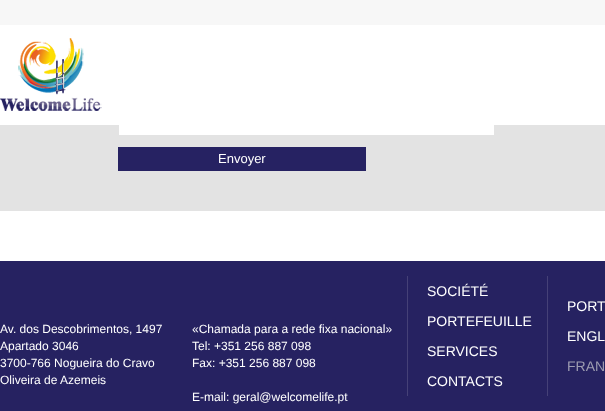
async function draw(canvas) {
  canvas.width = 605;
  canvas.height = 411;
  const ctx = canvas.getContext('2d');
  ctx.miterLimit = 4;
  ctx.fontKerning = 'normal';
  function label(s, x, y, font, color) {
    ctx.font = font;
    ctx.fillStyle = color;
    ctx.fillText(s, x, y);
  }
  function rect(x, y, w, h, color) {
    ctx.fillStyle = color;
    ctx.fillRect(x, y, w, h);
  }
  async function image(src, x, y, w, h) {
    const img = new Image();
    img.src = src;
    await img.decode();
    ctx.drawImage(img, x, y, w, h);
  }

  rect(0, 0, 605, 411, '#fff');
  rect(0, 0, 605, 25, '#f7f7f7');
  await image('assets/img1.png', 0, 38, 102, 73);
  rect(0, 125, 605, 86, '#e3e3e3');
  rect(119, 125, 375, 10, '#fff');
  rect(118, 147, 248, 24, '#262262');
  label('Envoyer', 218, 163, '13px Liberation Sans', '#fff');
  rect(0, 261, 605, 150, '#262261');
  rect(407, 276, 1, 120, '#454177');
  label('Av. dos Descobrimentos, 1497', 0, 333, '12px Liberation Sans', '#fff');
  label('Apartado 3046', 0, 350, '12px Liberation Sans', '#fff');
  label('3700-766 Nogueira do Cravo', 0, 367, '12px Liberation Sans', '#fff');
  label('Oliveira de Azemeis', 0, 384, '12px Liberation Sans', '#fff');
  label('«Chamada para a rede fixa nacional»', 192, 333, '12px Liberation Sans', '#fff');
  label('Tel: +351 256 887 098', 192, 350, '12px Liberation Sans', '#fff');
  label('Fax: +351 256 887 098', 192, 367, '12px Liberation Sans', '#fff');
  label('E-mail: geral@welcomelife.pt', 192, 401, '12px Liberation Sans', '#fff');
  rect(547, 276, 1, 120, '#454177');
  label('SOCIÉTÉ', 427, 296, '14px Liberation Sans', '#fff');
  label('PORTEFEUILLE', 427, 326, '14px Liberation Sans', '#fff');
  label('SERVICES', 427, 356, '14px Liberation Sans', '#fff');
  label('CONTACTS', 427, 386, '14px Liberation Sans', '#fff');
  label('PORT', 567, 311, '14px Liberation Sans', '#fff');
  label('ENGL', 567, 341, '14px Liberation Sans', '#fff');
  label('FRAN', 567, 371, '14px Liberation Sans', '#9d9cb1');
}

draw(document.querySelector('canvas'));
